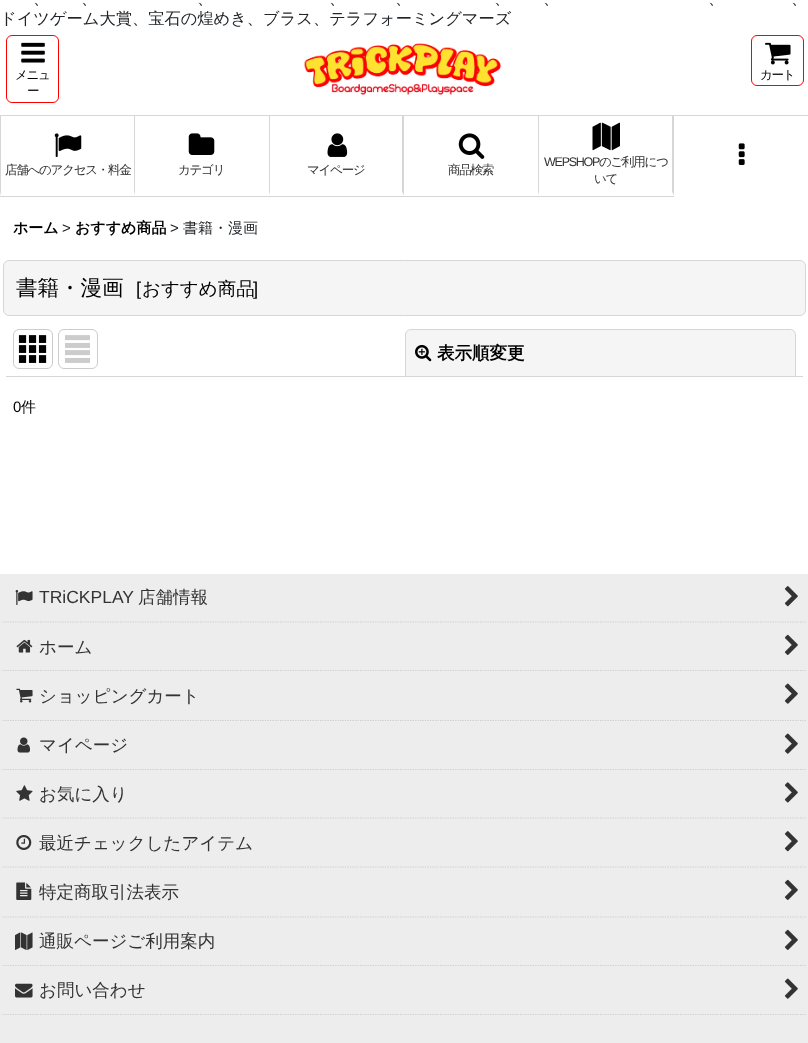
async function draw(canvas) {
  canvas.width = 808;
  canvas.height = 1043;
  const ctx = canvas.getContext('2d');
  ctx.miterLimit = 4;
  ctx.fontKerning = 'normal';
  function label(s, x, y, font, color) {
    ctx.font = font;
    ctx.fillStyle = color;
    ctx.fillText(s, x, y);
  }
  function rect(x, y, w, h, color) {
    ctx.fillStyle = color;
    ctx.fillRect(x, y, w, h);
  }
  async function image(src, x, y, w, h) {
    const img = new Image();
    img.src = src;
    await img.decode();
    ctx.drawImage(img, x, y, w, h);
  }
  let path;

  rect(0, 0, 808, 1043, '#fff');
  label('、', 33, 4, '500 16.25px WenQuanYi Zen Hei', '#212529');
  label('、', 81, 4, '500 16.25px WenQuanYi Zen Hei', '#212529');
  label('、', 197, 4, '500 16.25px WenQuanYi Zen Hei', '#212529');
  label('、', 329, 4, '500 16.25px WenQuanYi Zen Hei', '#212529');
  label('、', 395, 4, '500 16.25px WenQuanYi Zen Hei', '#212529');
  label('、', 494, 4, '500 16.25px WenQuanYi Zen Hei', '#212529');
  label('、', 543, 4, '500 16.25px WenQuanYi Zen Hei', '#212529');
  label('、', 708, 4, '500 16.25px WenQuanYi Zen Hei', '#212529');
  label('、', 791, 4, '500 16.25px WenQuanYi Zen Hei', '#212529');
  label('ドイツゲーム大賞、宝石の煌めき、ブラス、テラフォーミングマーズ', 0, 24, '500 16.25px WenQuanYi Zen Hei', '#212529');
  rect(0, 115, 808, 1, '#d6d6d6');
  ctx.beginPath();
  ctx.roundRect(6.5, 35.5, 52, 67, 5.5);
  ctx.strokeStyle = '#f00';
  ctx.stroke();
  await image('assets/img1.png', 21, 42, 24, 21);
  ctx.letterSpacing = '-1.25px';
  label('メニュ', 15, 79, '500 12.5px WenQuanYi Zen Hei', '#000');
  label('ー', 27, 95, '500 12.5px WenQuanYi Zen Hei', '#000');
  await image('assets/img2.png', 304, 43, 197, 52);
  ctx.beginPath();
  ctx.roundRect(751.5, 35.5, 52, 50, 5.5);
  ctx.stroke();
  await image('assets/img3.png', 765, 42, 26, 23);
  label('カート', 760, 79, '500 12.5px WenQuanYi Zen Hei', '#000');
  rect(0, 196, 674, 1, '#d6d6d6');
  path = new Path2D('M135 116V196L134 192V116Z');
  ctx.fill(path);
  ctx.fillStyle = '#fff';
  path = new Path2D('M135 196H0L1 192H134Z');
  ctx.fill(path);
  ctx.fillStyle = '#d6d6d6';
  path = new Path2D('M0 196V116H1V192Z');
  ctx.fill(path);
  await image('assets/img4.png', 54, 133, 28, 24);
  label('店舗へのアクセス・料金', 5, 174, '500 12.5px WenQuanYi Zen Hei', '#333');
  ctx.fillStyle = '#d6d6d6';
  path = new Path2D('M270 116V196L269 192V116Z');
  ctx.fill(path);
  ctx.fillStyle = '#fff';
  path = new Path2D('M270 196H135V192H269Z');
  ctx.fill(path);
  await image('assets/img5.png', 188, 133, 27, 22);
  label('カテゴリ', 178, 174, '500 12.5px WenQuanYi Zen Hei', '#333');
  ctx.fillStyle = '#d6d6d6';
  path = new Path2D('M404 116V196L402 192V116Z');
  ctx.fill(path);
  ctx.fillStyle = '#fff';
  path = new Path2D('M404 196H270V192H402Z');
  ctx.fill(path);
  await image('assets/img6.png', 327, 133, 21, 24);
  label('マイページ', 307, 174, '500 12.5px WenQuanYi Zen Hei', '#333');
  ctx.fillStyle = '#d6d6d6';
  path = new Path2D('M539 116V196L538 192V116Z');
  ctx.fill(path);
  ctx.fillStyle = '#fff';
  path = new Path2D('M539 196H404V192H538Z');
  ctx.fill(path);
  await image('assets/img7.png', 458, 133, 27, 26);
  label('商品検索', 448, 174, '500 12.5px WenQuanYi Zen Hei', '#333');
  ctx.fillStyle = '#d6d6d6';
  path = new Path2D('M674 116V196L672 192V116Z');
  ctx.fill(path);
  ctx.fillStyle = '#fff';
  path = new Path2D('M674 196H539V192H672Z');
  ctx.fill(path);
  await image('assets/img8.png', 592, 122, 28, 29);
  label('WEPSHOP', 544, 166, '12.5px Liberation Sans', '#333');
  label('のご利用につ', 599, 166, '500 12.5px WenQuanYi Zen Hei', '#333');
  label('いて', 594, 183, '500 12.5px WenQuanYi Zen Hei', '#333');
  await image('assets/img9.png', 738, 143, 7, 22);
  ctx.letterSpacing = '0px';
  label('ホーム', 13, 233, 'bold 15px WenQuanYi Zen Hei', '#000');
  label('>', 62, 233, '15px Liberation Sans', '#212529');
  label('おすすめ商品', 75, 233, 'bold 15px WenQuanYi Zen Hei', '#000');
  label('>', 170, 233, '15px Liberation Sans', '#212529');
  label('書籍・漫画', 183, 233, '500 15px WenQuanYi Zen Hei', '#212529');
  ctx.fillStyle = '#f5f5f5';
  ctx.beginPath();
  ctx.roundRect(3.5, 260.5, 802, 55, 5.5);
  ctx.fill();
  ctx.strokeStyle = '#d6d6d6';
  ctx.stroke();
  label('書籍・漫画', 16, 295, '500 21.5px WenQuanYi Zen Hei', '#000');
  label('[', 136, 295, '18.5px Liberation Sans', '#000');
  label('おすすめ商品', 142, 295, '500 18.5px WenQuanYi Zen Hei', '#000');
  label(']', 253, 295, '18.5px Liberation Sans', '#000');
  rect(6, 376, 797, 1, '#d6d6d6');
  ctx.beginPath();
  ctx.roundRect(13.5, 329.5, 39, 39, 5.5);
  ctx.strokeStyle = '#ccc';
  ctx.stroke();
  await image('assets/img10.png', 18, 335, 29, 28);
  ctx.beginPath();
  ctx.roundRect(58.5, 329.5, 39, 39, 5.5);
  ctx.stroke();
  await image('assets/img11.png', 65, 335, 25, 28);
  ctx.fillStyle = '#f5f5f5';
  ctx.beginPath();
  ctx.roundRect(405, 329, 391, 47, [6, 6, 0, 0]);
  ctx.fill();
  ctx.fillStyle = '#d6d6d6';
  path = new Path2D('M411 329H790C793 329 796 332 796 335V376H405V335C405 332 408 329 411 329ZM411 330H790C793 330 795 332 795 335V376H406V335C406 332 408 330 411 330Z');
  ctx.fill(path, 'evenodd');
  await image('assets/img12.png', 415, 345, 17, 17);
  label('表示順変更', 437, 359, 'bold 17.5px WenQuanYi Zen Hei', '#000');
  label('0', 13, 412, '15px Liberation Sans', '#000');
  label('件', 21, 412, '500 15px WenQuanYi Zen Hei', '#000');
  rect(0, 574, 808, 469, '#ededed');
  path = new Path2D('M2.5 622H806');
  ctx.lineWidth = 1.2;
  ctx.setLineDash([1.25, 1.25]);
  ctx.stroke(path);
  await image('assets/img13.png', 15, 590, 18, 15);
  label('TRiCKPLAY', 39, 603, '17.5px Liberation Sans', '#333');
  label('店舗情報', 138, 603, '500 17.5px WenQuanYi Zen Hei', '#333');
  await image('assets/img14.png', 784, 586, 14, 21);
  path = new Path2D('M2.5 670.5H806');
  ctx.stroke(path);
  await image('assets/img15.png', 16, 639, 17, 14);
  label('ホーム', 39, 653, '500 17.5px WenQuanYi Zen Hei', '#333');
  await image('assets/img16.png', 784, 634, 14, 21);
  path = new Path2D('M2.5 720.5H806');
  ctx.stroke(path);
  await image('assets/img17.png', 16, 688, 17, 15);
  label('ショッピングカート', 39, 702, '500 17.5px WenQuanYi Zen Hei', '#333');
  await image('assets/img18.png', 784, 683, 14, 21);
  path = new Path2D('M2.5 769.5H806');
  ctx.stroke(path);
  await image('assets/img19.png', 17, 737, 13, 16);
  label('マイページ', 39, 751, '500 17.5px WenQuanYi Zen Hei', '#333');
  await image('assets/img18.png', 784, 733, 14, 21);
  path = new Path2D('M2.5 818H806');
  ctx.stroke(path);
  await image('assets/img20.png', 16, 785, 17, 16);
  label('お気に入り', 39, 800, '500 17.5px WenQuanYi Zen Hei', '#333');
  await image('assets/img21.png', 784, 782, 14, 21);
  path = new Path2D('M2.5 867H806');
  ctx.stroke(path);
  await image('assets/img22.png', 16, 835, 16, 15);
  label('最近チェックしたアイテム', 39, 849, '500 17.5px WenQuanYi Zen Hei', '#333');
  await image('assets/img14.png', 784, 831, 14, 21);
  path = new Path2D('M2.5 917H806');
  ctx.stroke(path);
  await image('assets/img23.png', 16, 882, 16, 18);
  label('特定商取引法表示', 39, 898, '500 17.5px WenQuanYi Zen Hei', '#333');
  await image('assets/img16.png', 784, 879, 14, 21);
  path = new Path2D('M2.5 965.5H806');
  ctx.stroke(path);
  await image('assets/img24.png', 15, 932, 18, 18);
  label('通販ページご利用案内', 39, 947, '500 17.5px WenQuanYi Zen Hei', '#333');
  await image('assets/img16.png', 784, 929, 14, 21);
  path = new Path2D('M2.5 1014.5H806');
  ctx.stroke(path);
  await image('assets/img25.png', 15, 983, 18, 15);
  label('お問い合わせ', 39, 996, '500 17.5px WenQuanYi Zen Hei', '#333');
  await image('assets/img18.png', 784, 978, 14, 21);
}

draw(document.querySelector('canvas'));
